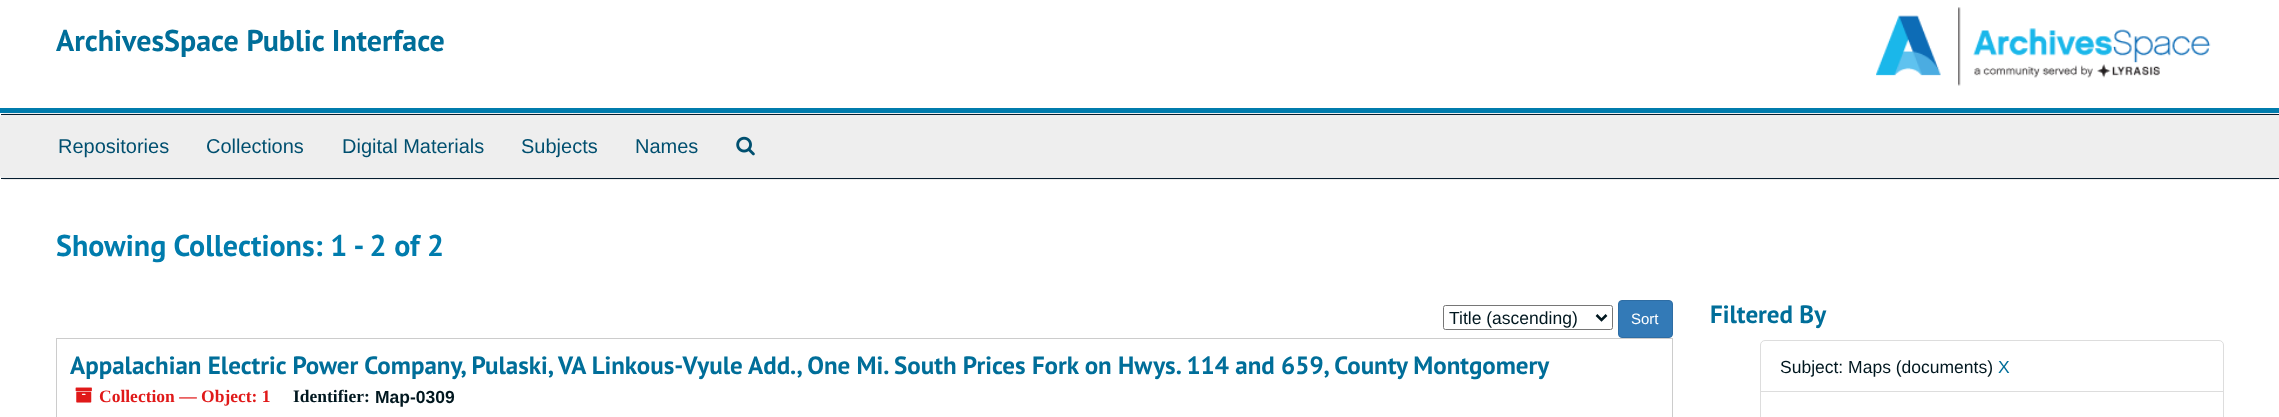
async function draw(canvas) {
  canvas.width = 2279;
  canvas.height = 417;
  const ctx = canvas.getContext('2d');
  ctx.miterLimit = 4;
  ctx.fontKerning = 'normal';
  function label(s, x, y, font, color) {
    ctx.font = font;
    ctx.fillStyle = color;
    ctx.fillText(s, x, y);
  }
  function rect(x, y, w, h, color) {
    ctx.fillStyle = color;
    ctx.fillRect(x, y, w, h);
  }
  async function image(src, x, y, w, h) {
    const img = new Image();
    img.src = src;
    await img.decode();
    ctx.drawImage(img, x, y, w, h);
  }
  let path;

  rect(0, 0, 2279, 417, '#fff');
  rect(0, 108, 2279, 5, '#007cad');
  label('ArchivesSpace Public Interface', 56, 51, 'bold 30px PT Sans', '#006e99');
  await image('assets/img1.png', 1876, 7, 335, 79);
  ctx.beginPath();
  ctx.roundRect(0.5, 113.5, 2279, 66, 4.5);
  ctx.strokeStyle = '#eee';
  ctx.stroke();
  rect(1, 115, 2278, 63, '#eee');
  rect(1, 114, 2278, 1, '#041c2f');
  rect(1, 178, 2278, 1, '#041c2f');
  label('Repositories', 58, 153, '20px Liberation Sans', '#004f6f');
  label('Collections', 206, 153, '20px Liberation Sans', '#004f6f');
  label('Digital Materials', 342, 153, '20px Liberation Sans', '#004f6f');
  label('Subjects', 521, 153, '20px Liberation Sans', '#004f6f');
  label('Names', 635, 153, '20px Liberation Sans', '#004f6f');
  await image('assets/img2.png', 736, 136, 19, 20);
  label('Showing Collections: 1 - 2 of 2', 56, 256, 'bold 30px PT Sans', '#007cad');
  ctx.beginPath();
  ctx.roundRect(1443.5, 305.5, 169, 24, 2);
  ctx.strokeStyle = '#767676';
  ctx.stroke();
  path = new Path2D('M1596.5 315L1601.5 320L1606.5 315');
  ctx.strokeStyle = '#00171f';
  ctx.lineWidth = 2.5;
  ctx.stroke(path);
  label('Title (ascending)', 1449, 324, '17.5px Liberation Sans', '#00171f');
  ctx.fillStyle = '#337ab7';
  ctx.beginPath();
  ctx.roundRect(1618.5, 300.5, 54, 37, 3.5);
  ctx.fill();
  ctx.strokeStyle = '#2e6da4';
  ctx.lineWidth = 1;
  ctx.stroke();
  label('Sort', 1631, 324, '15px Liberation Sans', '#fff');
  ctx.strokeStyle = '#ccc';
  ctx.strokeRect(56.5, 338.5, 1616, 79);
  label('Appalachian Electric Power Company, Pulaski, VA Linkous-Vyule Add., One Mi. South Prices Fork on Hwys. 114 and 659, County Montgomery', 70, 374, 'bold 25px PT Sans', '#006e99');
  await image('assets/img3.png', 75, 387, 17, 16);
  label('Collection — Object: 1', 99, 402, 'bold 17.5px Liberation Serif', '#e01919');
  label('Identifier:', 293, 402, 'bold 17.5px Liberation Serif', '#00171f');
  label('Map-0309', 375, 403, 'bold 17.5px Liberation Sans', '#00171f');
  label('Filtered By', 1710, 323, 'bold 25px PT Sans', '#006e99');
  ctx.beginPath();
  ctx.roundRect(1760.5, 340.5, 463, 52, [4.5, 4.5, 0, 0]);
  ctx.strokeStyle = '#ddd';
  ctx.stroke();
  label('Subject: Maps (documents)', 1780, 373, '17.5px Liberation Sans', '#00171f');
  label('X', 1998, 373, '17.5px Liberation Sans', '#006e99');
  rect(1761, 392, 462, 1, '#fff');
  ctx.strokeRect(1760.5, 391.5, 463, 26);
}

draw(document.querySelector('canvas'));
